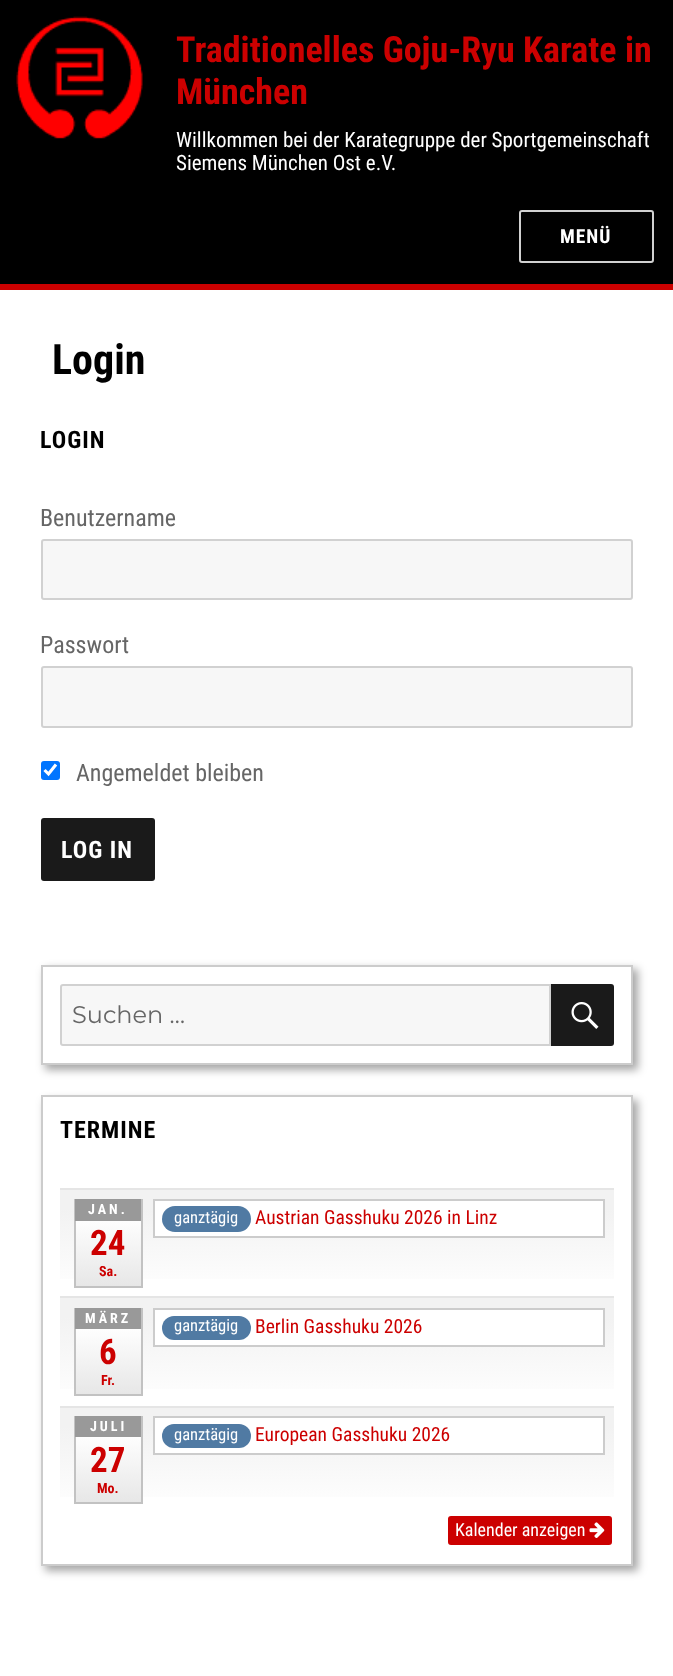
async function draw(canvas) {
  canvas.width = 673;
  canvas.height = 1676;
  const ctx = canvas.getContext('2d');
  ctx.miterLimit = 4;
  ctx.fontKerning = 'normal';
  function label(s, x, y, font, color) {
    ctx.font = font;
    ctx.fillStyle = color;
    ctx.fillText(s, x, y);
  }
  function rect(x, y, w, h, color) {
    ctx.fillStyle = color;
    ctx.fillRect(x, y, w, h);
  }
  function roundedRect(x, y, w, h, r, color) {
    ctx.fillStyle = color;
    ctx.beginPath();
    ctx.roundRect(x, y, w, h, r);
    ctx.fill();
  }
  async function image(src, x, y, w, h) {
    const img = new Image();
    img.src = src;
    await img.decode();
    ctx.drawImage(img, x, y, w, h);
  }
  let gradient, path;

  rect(0, 0, 673, 1676, '#fff');
  rect(0, 0, 673, 284, '#000');
  rect(0, 284, 673, 6, '#c00');
  await image('assets/img1.png', 16, 16, 127, 123);
  label('Traditionelles Goju-Ryu Karate in', 176, 62, 'bold 36px Roboto Condensed', '#c00');
  label('München', 176, 104, 'bold 36px Roboto Condensed', '#c00');
  label('Willkommen bei der Karategruppe der Sportgemeinschaft', 176, 147, '21px Roboto Condensed', '#fff');
  label('Siemens München Ost e.V.', 176, 170, '21px Roboto Condensed', '#fff');
  ctx.beginPath();
  ctx.roundRect(520, 211, 133, 51, 2);
  ctx.strokeStyle = '#d1d1d1';
  ctx.lineWidth = 2;
  ctx.stroke();
  ctx.letterSpacing = '1px';
  label('MENÜ', 560, 243, 'bold 19.5px Roboto Condensed', '#fff');
  ctx.letterSpacing = '0px';
  label('Login', 52, 374, 'bold 42px Roboto Condensed', '#000');
  ctx.letterSpacing = '1px';
  label('LOGIN', 40, 448, 'bold 24px Roboto Condensed', '#000');
  ctx.letterSpacing = '0px';
  label('Benutzername', 40, 526, '24px Roboto Condensed', '#666');
  ctx.fillStyle = '#f7f7f7';
  ctx.beginPath();
  ctx.roundRect(42, 540, 590, 59, 2);
  ctx.fill();
  ctx.stroke();
  label('Passwort', 40, 653, '24px Roboto Condensed', '#666');
  ctx.fillStyle = '#f7f7f7';
  ctx.beginPath();
  ctx.roundRect(42, 667, 590, 60, 2);
  ctx.fill();
  ctx.stroke();
  roundedRect(41, 761, 19, 19, 3, '#0075ff');
  path = new Path2D('M44.5 770L48.5 774L56 764.5');
  ctx.strokeStyle = '#fff';
  ctx.lineWidth = 3.1;
  ctx.stroke(path);
  label('Angemeldet bleiben', 76, 781, '24px Roboto Condensed', '#666');
  roundedRect(41, 818, 114, 63, 3, '#1a1a1a');
  ctx.letterSpacing = '1px';
  label('LOG IN', 61, 858, 'bold 24px Roboto Condensed', '#fff');
  ctx.save();
  path = new Path2D('M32 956H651V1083H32ZM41 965H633V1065H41Z');
  ctx.clip(path, 'evenodd');
  ctx.fillStyle = '#00000059';
  ctx.filter = 'blur(4px)';
  ctx.beginPath();
  ctx.rect(45, 969, 593, 101);
  ctx.fill();
  ctx.filter = 'none';
  ctx.restore();
  ctx.strokeStyle = '#ccc';
  ctx.lineWidth = 2;
  ctx.strokeRect(42, 966, 590, 98);
  ctx.fillStyle = '#f7f7f7';
  ctx.beginPath();
  ctx.roundRect(61, 985, 489, 60, [2, 0, 0, 2]);
  ctx.fill();
  ctx.strokeStyle = '#d1d1d1';
  ctx.stroke();
  ctx.letterSpacing = '0px';
  label('Suchen …', 72, 1023, '24px Montserrat', '#666');
  ctx.fillStyle = '#1a1a1a';
  ctx.beginPath();
  ctx.roundRect(551, 984, 63, 62, [0, 3, 3, 0]);
  ctx.fill();
  await image('assets/img2.png', 571, 1002, 28, 27);
  ctx.save();
  path = new Path2D('M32 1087H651V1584H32ZM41 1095H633V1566H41Z');
  ctx.clip(path, 'evenodd');
  ctx.fillStyle = '#00000059';
  ctx.filter = 'blur(4px)';
  ctx.beginPath();
  ctx.rect(45, 1100, 593, 471);
  ctx.fill();
  ctx.filter = 'none';
  ctx.restore();
  ctx.strokeStyle = '#ccc';
  ctx.strokeRect(42, 1096, 590, 469);
  ctx.letterSpacing = '1px';
  label('TERMINE', 60, 1138, 'bold 24px Roboto Condensed', '#000');
  gradient = ctx.createLinearGradient(337, 1190, 337, 1296);
  gradient.addColorStop(0, '#f2f2f2');
  gradient.addColorStop(0.18, '#f2f2f2');
  gradient.addColorStop(1, '#fff');
  ctx.fillStyle = gradient;
  ctx.fillRect(60, 1190, 554, 89);
  rect(60, 1188, 554, 2, '#e5e5e5');
  gradient = ctx.createLinearGradient(108, 1199, 108, 1286);
  gradient.addColorStop(0, '#fff');
  gradient.addColorStop(0.2, '#fff');
  gradient.addColorStop(1, '#e7e7e7');
  ctx.fillStyle = gradient;
  ctx.fillRect(76, 1221, 65, 65);
  rect(141, 1199, 2, 88, '#c2c2c2');
  rect(74, 1286, 69, 2, '#c2c2c2');
  rect(74, 1199, 2, 88, '#c2c2c2');
  rect(75, 1199, 66, 22, '#999');
  ctx.letterSpacing = '3px';
  label('JAN.', 88, 1214, 'bold 14px Roboto Condensed', '#fff');
  ctx.letterSpacing = '0px';
  label('24', 90, 1255, 'bold 35px Roboto Condensed', '#c00');
  label('Sa.', 99, 1276, 'bold 14px Roboto Condensed', '#c00');
  ctx.fillStyle = '#fff';
  ctx.beginPath();
  ctx.rect(154, 1200, 450, 37);
  ctx.fill();
  ctx.stroke();
  roundedRect(162, 1206, 89, 26, 13, '#507aa3');
  label('ganztägig', 174, 1223, '16.5px Roboto Condensed', '#fff');
  label('Austrian Gasshuku 2026 in Linz', 255, 1224, '19.5px Roboto Condensed', '#c00');
  gradient = ctx.createLinearGradient(337, 1298, 337, 1406);
  gradient.addColorStop(0, '#f2f2f2');
  gradient.addColorStop(0.18, '#f2f2f2');
  gradient.addColorStop(1, '#fff');
  ctx.fillStyle = gradient;
  ctx.fillRect(60, 1298, 554, 91);
  rect(60, 1296, 554, 2, '#e5e5e5');
  gradient = ctx.createLinearGradient(108, 1308, 108, 1394);
  gradient.addColorStop(0, '#fff');
  gradient.addColorStop(0.21, '#fff');
  gradient.addColorStop(1, '#e7e7e7');
  ctx.fillStyle = gradient;
  ctx.fillRect(76, 1329, 65, 65);
  rect(141, 1308, 2, 87, '#c2c2c2');
  rect(74, 1394, 69, 2, '#c2c2c2');
  rect(74, 1308, 2, 87, '#c2c2c2');
  rect(75, 1308, 66, 21, '#999');
  ctx.letterSpacing = '3px';
  label('MÄRZ', 85, 1323, 'bold 14px Roboto Condensed', '#fff');
  ctx.letterSpacing = '0px';
  label('6', 99, 1364, 'bold 35px Roboto Condensed', '#c00');
  label('Fr.', 101, 1385, 'bold 14px Roboto Condensed', '#c00');
  ctx.fillStyle = '#fff';
  ctx.beginPath();
  ctx.rect(154, 1309, 450, 37);
  ctx.fill();
  ctx.stroke();
  roundedRect(162, 1316, 89, 24, 12, '#507aa3');
  label('ganztägig', 174, 1331, '16.5px Roboto Condensed', '#fff');
  label('Berlin Gasshuku 2026', 255, 1333, '19.5px Roboto Condensed', '#c00');
  gradient = ctx.createLinearGradient(337, 1407, 337, 1514);
  gradient.addColorStop(0, '#f2f2f2');
  gradient.addColorStop(0.18, '#f2f2f2');
  gradient.addColorStop(1, '#fff');
  ctx.fillStyle = gradient;
  ctx.fillRect(60, 1408, 554, 89);
  rect(60, 1406, 554, 2, '#e5e5e5');
  gradient = ctx.createLinearGradient(108, 1416, 108, 1502);
  gradient.addColorStop(0, '#fff');
  gradient.addColorStop(0.21, '#fff');
  gradient.addColorStop(1, '#e7e7e7');
  ctx.fillStyle = gradient;
  ctx.fillRect(76, 1437, 65, 65);
  rect(141, 1416, 2, 87, '#c2c2c2');
  rect(74, 1502, 69, 2, '#c2c2c2');
  rect(74, 1416, 2, 87, '#c2c2c2');
  rect(75, 1416, 66, 21, '#999');
  ctx.letterSpacing = '3px';
  label('JULI', 90, 1431, 'bold 14px Roboto Condensed', '#fff');
  ctx.letterSpacing = '0px';
  label('27', 90, 1472, 'bold 35px Roboto Condensed', '#c00');
  label('Mo.', 97, 1493, 'bold 14px Roboto Condensed', '#c00');
  ctx.fillStyle = '#fff';
  ctx.beginPath();
  ctx.rect(154, 1417, 450, 37);
  ctx.fill();
  ctx.stroke();
  roundedRect(162, 1424, 89, 24, 12, '#507aa3');
  label('ganztägig', 174, 1440, '16.5px Roboto Condensed', '#fff');
  label('European Gasshuku 2026', 255, 1441, '19.5px Roboto Condensed', '#c00');
  ctx.beginPath();
  ctx.roundRect(447, 1515, 166, 31, 4);
  ctx.fill();
  ctx.strokeStyle = '#fff';
  ctx.stroke();
  label('Kalender anzeigen', 455, 1536, '18px Roboto Condensed', '#fff');
  await image('assets/img3.png', 589, 1522, 16, 16);
}

draw(document.querySelector('canvas'));
